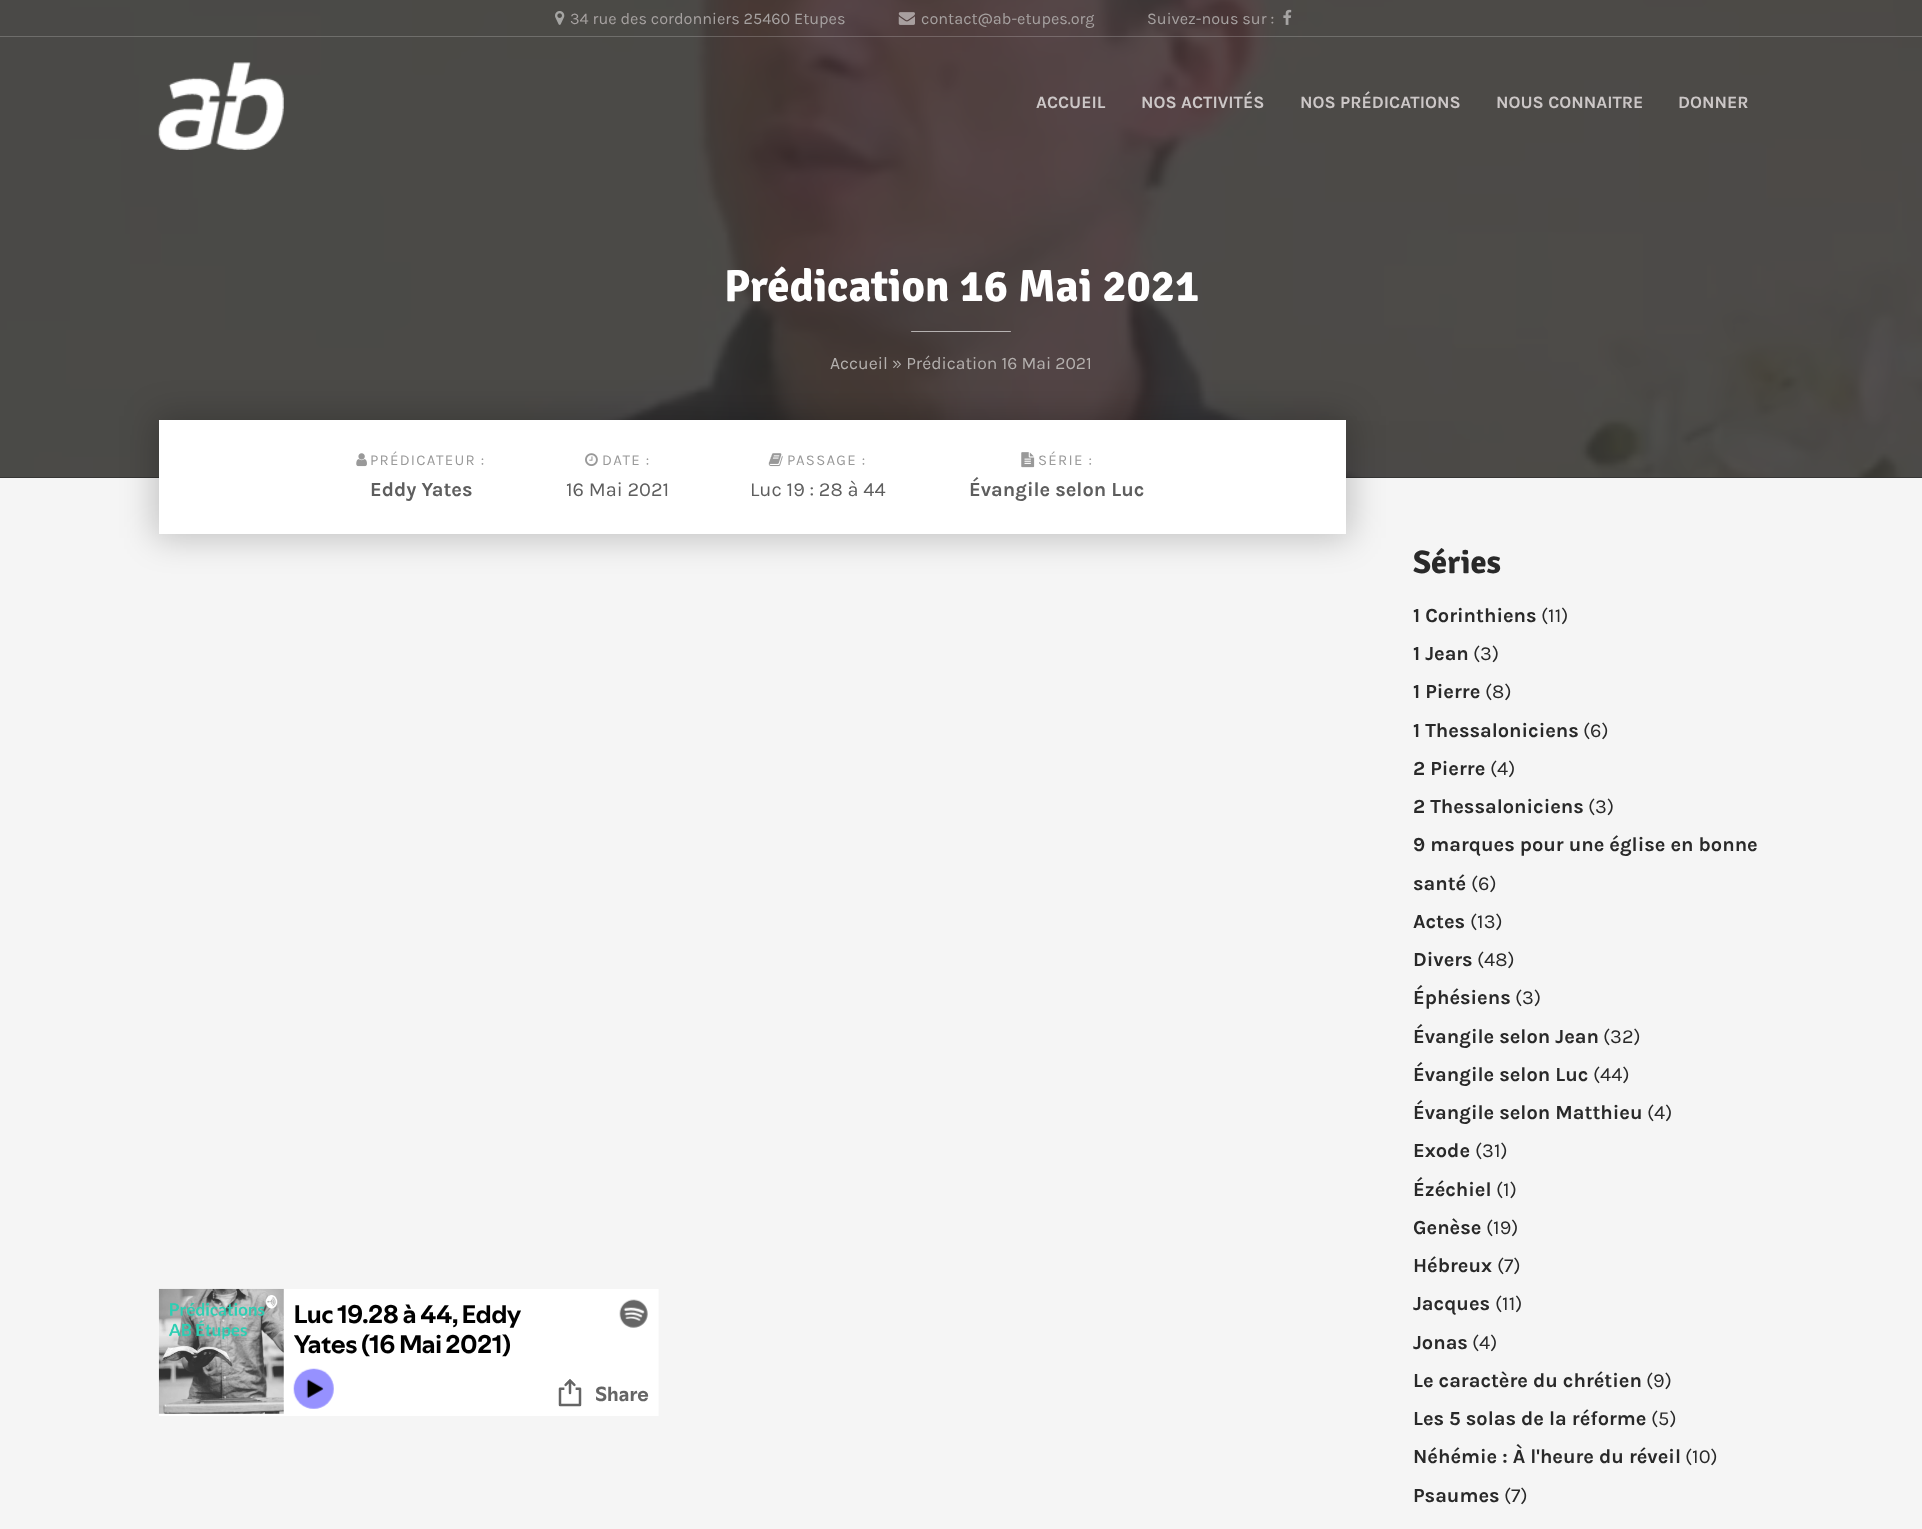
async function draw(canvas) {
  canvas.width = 1922;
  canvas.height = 1529;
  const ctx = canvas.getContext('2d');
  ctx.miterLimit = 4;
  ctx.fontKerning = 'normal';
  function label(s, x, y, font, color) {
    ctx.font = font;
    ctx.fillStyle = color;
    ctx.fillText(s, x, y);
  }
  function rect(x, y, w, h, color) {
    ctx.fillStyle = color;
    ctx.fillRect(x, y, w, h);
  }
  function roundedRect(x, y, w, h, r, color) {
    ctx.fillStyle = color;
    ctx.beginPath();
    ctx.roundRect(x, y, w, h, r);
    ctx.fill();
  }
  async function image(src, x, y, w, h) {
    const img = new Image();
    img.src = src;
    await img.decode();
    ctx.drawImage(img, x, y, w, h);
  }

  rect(0, 0, 1922, 1529, '#f5f5f5');
  rect(0, 0, 1922, 478, '#313131');
  await image('assets/img5.png', 0, 0, 1922, 478);
  rect(0, 36, 1922, 1, '#ffffff33');
  await image('assets/img1.png', 555, 11, 10, 14);
  label('34 rue des cordonniers 25460 Etupes', 570, 24, '16.25px Karla', '#a6a1a0');
  await image('assets/img2.png', 898, 12, 17, 13);
  label('contact@ab-etupes.org', 921, 24, '16.25px Karla', '#a6a1a0');
  label('Suivez-nous sur :', 1147, 24, '16.25px Karla', '#a6a1a0');
  await image('assets/img3.png', 1283, 9, 9, 16);
  await image('assets/img4.png', 158, 62, 126, 88);
  label('ACCUEIL', 1036, 108, 'bold 17.5px Karla', '#ccc7c7');
  label('NOS ACTIVITÉS', 1141, 108, 'bold 17.5px Karla', '#ccc7c7');
  label('NOS PRÉDICATIONS', 1300, 108, 'bold 17.5px Karla', '#ccc7c7');
  label('NOUS CONNAITRE', 1496, 108, 'bold 17.5px Karla', '#ccc7c7');
  label('DONNER', 1678, 108, 'bold 17.5px Karla', '#ccc7c7');
  label('Prédication 16 Mai 2021', 724, 301, 'bold 45px Signika', '#fff');
  roundedRect(911, 331, 100, 1, 0.5, '#ffffff99');
  ctx.fillStyle = '#00000038';
  ctx.filter = 'blur(17px)';
  ctx.beginPath();
  ctx.rect(155, 416, 1195, 122);
  ctx.fill();
  ctx.filter = 'none';
  label('Accueil', 830, 369, '17.5px Karla', '#b4b0ae');
  label('» Prédication 16 Mai 2021', 892, 369, '17.5px Karla', '#b4b0ae');
  rect(159, 420, 1187, 114, '#fff');
  await image('assets/img6.png', 356, 453, 11, 14);
  ctx.letterSpacing = '1.25px';
  label('PRÉDICATEUR :', 370, 465, '15px Karla', '#999');
  ctx.letterSpacing = '0px';
  label('Eddy Yates', 370, 496, 'bold 20px Karla', '#5e5e5e');
  await image('assets/img7.png', 585, 453, 13, 13);
  ctx.letterSpacing = '1.25px';
  label('DATE :', 602, 465, '15px Karla', '#999');
  ctx.letterSpacing = '0px';
  label('16 Mai 2021', 566, 496, '20px Karla', '#5e5e5e');
  await image('assets/img8.png', 768, 453, 15, 14);
  ctx.letterSpacing = '1.25px';
  label('PASSAGE :', 787, 465, '15px Karla', '#999');
  ctx.letterSpacing = '0px';
  label('Luc 19 : 28 à 44', 750, 496, '20px Karla', '#5e5e5e');
  await image('assets/img9.png', 1021, 452, 14, 16);
  ctx.letterSpacing = '1.25px';
  label('SÉRIE :', 1038, 465, '15px Karla', '#999');
  ctx.letterSpacing = '0px';
  label('Évangile selon Luc', 969, 496, 'bold 20px Karla', '#5e5e5e');
  await image('assets/img10.png', 158, 1288, 501, 128);
  label('Séries', 1413, 573, 'bold 32.5px Signika', '#292929');
  label('1 Corinthiens', 1413, 622, 'bold 20px Karla', '#292929');
  label('(11)', 1541, 622, '20px Karla', '#292929');
  label('1 Jean', 1413, 660, 'bold 20px Karla', '#292929');
  label('(3)', 1473, 660, '20px Karla', '#292929');
  label('1 Pierre', 1413, 698, 'bold 20px Karla', '#292929');
  label('(8)', 1485, 698, '20px Karla', '#292929');
  label('1 Thessaloniciens', 1413, 737, 'bold 20px Karla', '#292929');
  label('(6)', 1583, 737, '20px Karla', '#292929');
  label('2 Pierre', 1413, 775, 'bold 20px Karla', '#292929');
  label('(4)', 1490, 775, '20px Karla', '#292929');
  label('2 Thessaloniciens', 1413, 813, 'bold 20px Karla', '#292929');
  label('(3)', 1588, 813, '20px Karla', '#292929');
  label('9 marques pour une église en bonne', 1413, 851, 'bold 20px Karla', '#292929');
  label('santé', 1413, 890, 'bold 20px Karla', '#292929');
  label('(6)', 1471, 890, '20px Karla', '#292929');
  label('Actes', 1413, 928, 'bold 20px Karla', '#292929');
  label('(13)', 1470, 928, '20px Karla', '#292929');
  label('Divers', 1413, 966, 'bold 20px Karla', '#292929');
  label('(48)', 1477, 966, '20px Karla', '#292929');
  label('Éphésiens', 1413, 1004, 'bold 20px Karla', '#292929');
  label('(3)', 1515, 1004, '20px Karla', '#292929');
  label('Évangile selon Jean', 1413, 1043, 'bold 20px Karla', '#292929');
  label('(32)', 1603, 1043, '20px Karla', '#292929');
  label('Évangile selon Luc', 1413, 1081, 'bold 20px Karla', '#292929');
  label('(44)', 1593, 1081, '20px Karla', '#292929');
  label('Évangile selon Matthieu', 1413, 1119, 'bold 20px Karla', '#292929');
  label('(4)', 1647, 1119, '20px Karla', '#292929');
  label('Exode', 1413, 1157, 'bold 20px Karla', '#292929');
  label('(31)', 1475, 1157, '20px Karla', '#292929');
  label('Ézéchiel', 1413, 1196, 'bold 20px Karla', '#292929');
  label('(1)', 1496, 1196, '20px Karla', '#292929');
  label('Genèse', 1413, 1234, 'bold 20px Karla', '#292929');
  label('(19)', 1486, 1234, '20px Karla', '#292929');
  label('Hébreux', 1413, 1272, 'bold 20px Karla', '#292929');
  label('(7)', 1497, 1272, '20px Karla', '#292929');
  label('Jacques', 1413, 1310, 'bold 20px Karla', '#292929');
  label('(11)', 1495, 1310, '20px Karla', '#292929');
  label('Jonas', 1413, 1349, 'bold 20px Karla', '#292929');
  label('(4)', 1472, 1349, '20px Karla', '#292929');
  label('Le caractère du chrétien', 1413, 1387, 'bold 20px Karla', '#292929');
  label('(9)', 1646, 1387, '20px Karla', '#292929');
  label('Les 5 solas de la réforme', 1413, 1425, 'bold 20px Karla', '#292929');
  label('(5)', 1651, 1425, '20px Karla', '#292929');
  label('Néhémie : À l\'heure du réveil', 1413, 1463, 'bold 20px Karla', '#292929');
  label('(10)', 1685, 1463, '20px Karla', '#292929');
  label('Psaumes', 1413, 1502, 'bold 20px Karla', '#292929');
  label('(7)', 1504, 1502, '20px Karla', '#292929');
}

draw(document.querySelector('canvas'));
